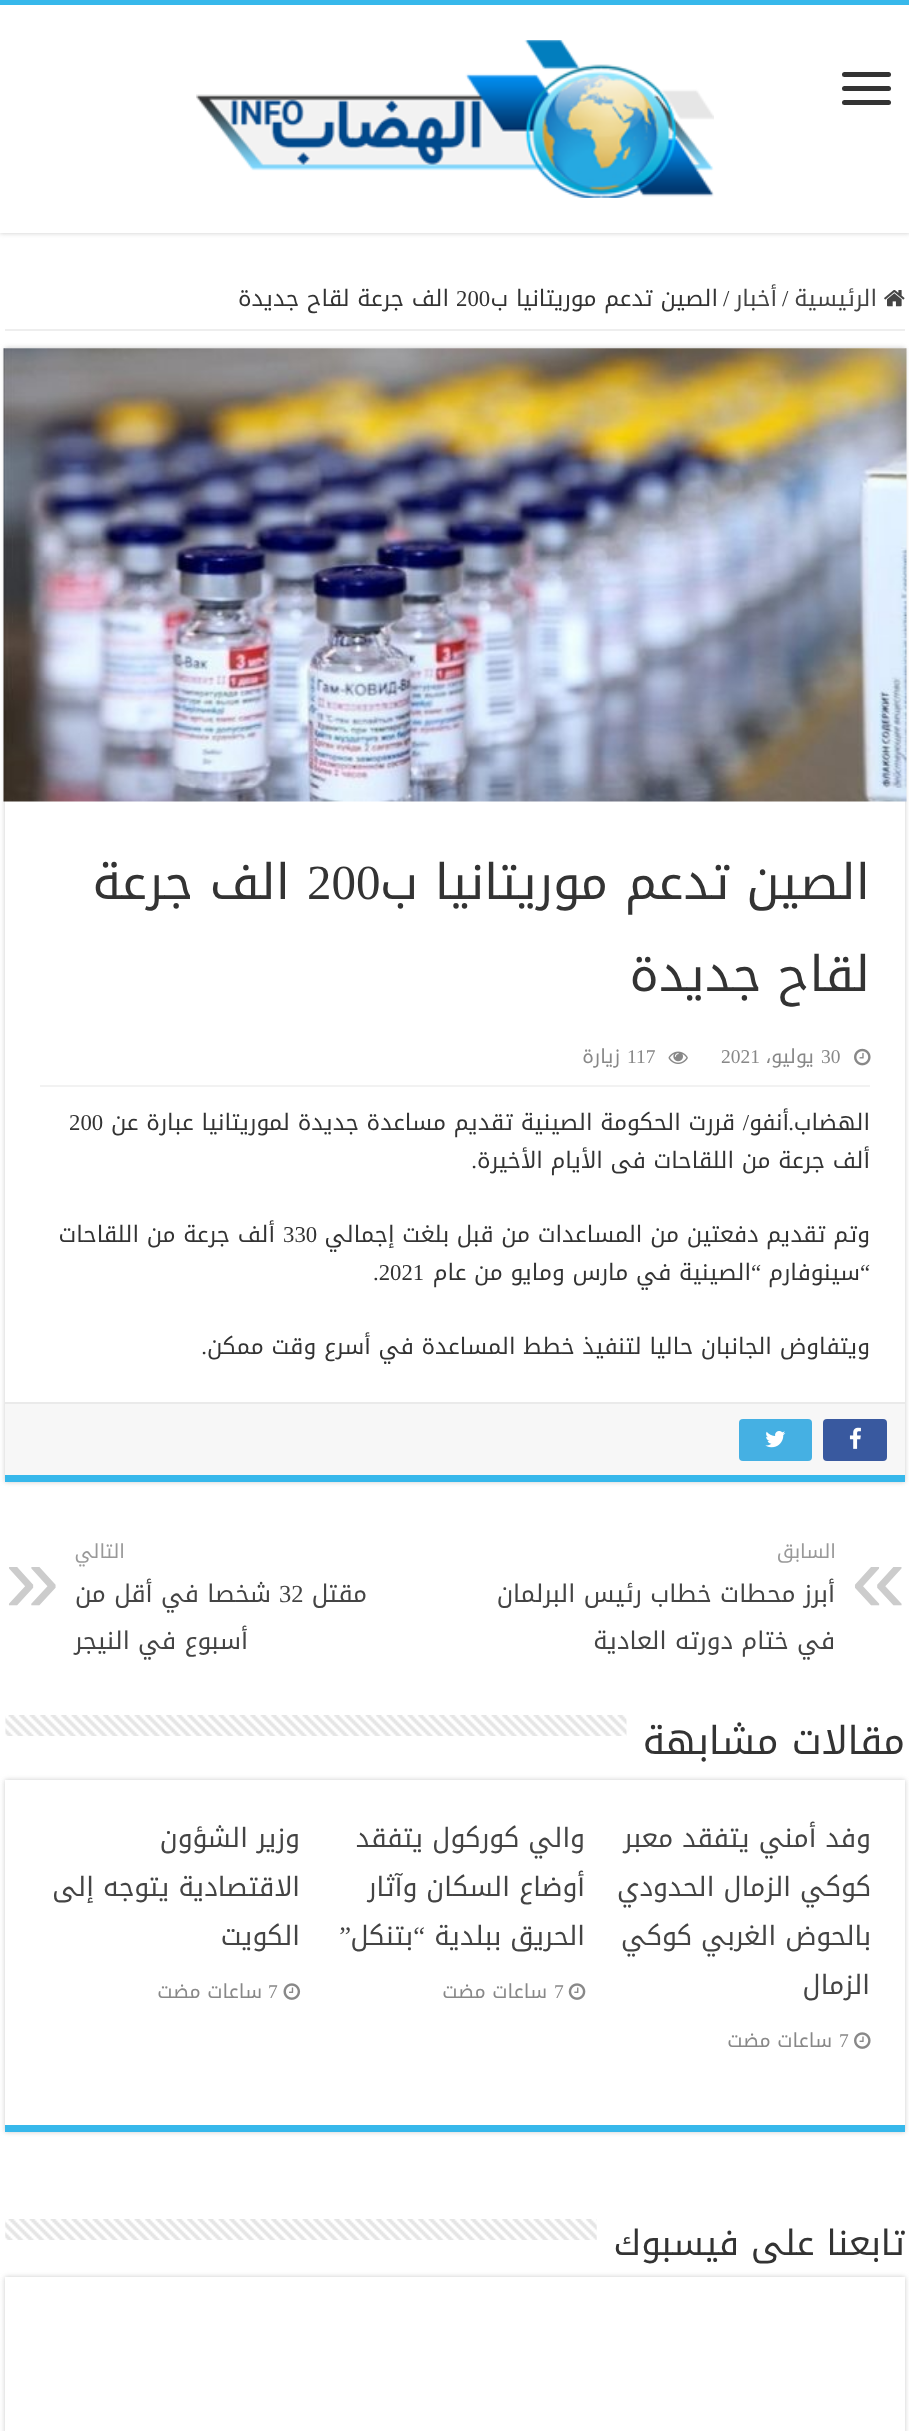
async function draw(canvas) {
  canvas.width = 909;
  canvas.height = 2431;
  const ctx = canvas.getContext('2d');
  ctx.miterLimit = 4;
  ctx.fontKerning = 'normal';
  function label(s, x, y, font, color) {
    ctx.font = font;
    ctx.fillStyle = color;
    ctx.fillText(s, x, y);
  }
  function rect(x, y, w, h, color) {
    ctx.fillStyle = color;
    ctx.fillRect(x, y, w, h);
  }
  function roundedRect(x, y, w, h, r, color) {
    ctx.fillStyle = color;
    ctx.beginPath();
    ctx.roundRect(x, y, w, h, r);
    ctx.fill();
  }
  async function image(src, x, y, w, h) {
    const img = new Image();
    img.src = src;
    await img.decode();
    ctx.drawImage(img, x, y, w, h);
  }

  rect(0, 0, 909, 2431, '#fff');
  ctx.fillStyle = '#cacaca';
  ctx.filter = 'blur(2.5px)';
  ctx.beginPath();
  ctx.rect(0, 0, 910, 233);
  ctx.fill();
  ctx.filter = 'none';
  rect(0, 5, 909, 228, '#fff');
  rect(0, 0, 909, 5, '#37b8eb');
  roundedRect(842, 72, 49, 5, 2.5, '#333');
  roundedRect(842, 86, 49, 5, 2.5, '#333');
  roundedRect(842, 100, 49, 5, 2.5, '#333');
  await image('assets/img1.png', 196, 40, 518, 158);
  rect(5, 329, 900, 2, '#eee');
  await image('assets/img2.png', 884, 290, 21, 17);
  ctx.direction = 'rtl';
  label('الرئيسية', 877, 306, '22.75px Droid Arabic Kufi', '#444');
  ctx.direction = 'ltr';
  label('/', 782, 306, '22.75px Liberation Serif', '#333');
  ctx.direction = 'rtl';
  label('أخبار', 777, 306, '22.75px Droid Arabic Kufi', '#444');
  ctx.direction = 'ltr';
  label('/', 723, 306, '22.75px Liberation Serif', '#333');
  ctx.direction = 'rtl';
  label('الصين تدعم موريتانيا ب', 718, 306, '22.75px Droid Arabic Kufi', '#333');
  ctx.direction = 'ltr';
  label('200', 456, 306, '22.75px Liberation Serif', '#333');
  ctx.direction = 'rtl';
  label('الف جرعة لقاح جديدة', 449, 306, '22.75px Droid Arabic Kufi', '#333');
  ctx.fillStyle = '#cacaca';
  ctx.filter = 'blur(2.5px)';
  ctx.beginPath();
  ctx.rect(5, 348, 900, 1134);
  ctx.fill();
  ctx.filter = 'none';
  rect(5, 348, 900, 1054, '#fff');
  rect(5, 1475, 900, 7, '#37b8eb');
  await image('assets/img3.png', 3, 348, 904, 454);
  label('الصين تدعم موريتانيا ب', 870, 899, '49px Droid Arabic Kufi', '#333');
  ctx.direction = 'ltr';
  label('200', 307, 899, '49px Liberation Serif', '#333');
  ctx.direction = 'rtl';
  label('الف جرعة', 290, 899, '49px Droid Arabic Kufi', '#333');
  label('لقاح جديدة', 870, 991, '49px Droid Arabic Kufi', '#333');
  rect(40, 1085, 830, 2, '#f2f2f2');
  await image('assets/img4.png', 854, 1048, 17, 18);
  ctx.direction = 'ltr';
  label('30', 821, 1063, '19.5px Liberation Serif', '#888');
  ctx.direction = 'rtl';
  label('يوليو،', 814, 1063, '19.5px Droid Arabic Kufi', '#888');
  ctx.direction = 'ltr';
  label('2021', 721, 1063, '19.5px Liberation Serif', '#888');
  await image('assets/img5.png', 668, 1051, 20, 13);
  label('117', 627, 1063, '19.5px Liberation Serif', '#888');
  ctx.direction = 'rtl';
  label('زيارة', 620, 1063, '19.5px Droid Arabic Kufi', '#888');
  label('الهضاب', 870, 1130, '22.75px Droid Arabic Kufi', '#333');
  label('.', 794, 1130, '22.75px Liberation Serif', '#333');
  label('أنفو', 789, 1130, '22.75px Droid Arabic Kufi', '#333');
  label('/', 749, 1130, '22.75px Liberation Serif', '#333');
  label('قررت الحكومة الصينية تقديم مساعدة جديدة لموريتانيا عبارة عن', 735, 1130, '22.75px Droid Arabic Kufi', '#333');
  ctx.direction = 'ltr';
  label('200', 69, 1130, '22.75px Liberation Serif', '#333');
  ctx.direction = 'rtl';
  label('ألف جرعة من اللقاحات فى الأيام الأخيرة', 870, 1168, '22.75px Droid Arabic Kufi', '#333');
  label('.', 477, 1168, '22.75px Liberation Serif', '#333');
  label('وتم تقديم دفعتين من المساعدات من قبل بلغت إجمالي', 870, 1242, '22.75px Droid Arabic Kufi', '#333');
  ctx.direction = 'ltr';
  label('330', 283, 1242, '22.75px Liberation Serif', '#333');
  ctx.direction = 'rtl';
  label('ألف جرعة من اللقاحات', 275, 1242, '22.75px Droid Arabic Kufi', '#333');
  label('“', 870, 1280, '22.75px Liberation Serif', '#333');
  label('سينوفارم', 860, 1280, '22.75px Droid Arabic Kufi', '#333');
  label('“', 761, 1280, '22.75px Liberation Serif', '#333');
  label('الصينية في مارس ومايو من عام', 751, 1280, '22.75px Droid Arabic Kufi', '#333');
  ctx.direction = 'ltr';
  label('.2021', 373, 1280, '22.75px Liberation Serif', '#333');
  ctx.direction = 'rtl';
  label('ويتفاوض الجانبان حاليا لتنفيذ خطط المساعدة في أسرع وقت ممكن', 870, 1354, '22.75px Droid Arabic Kufi', '#333');
  label('.', 207, 1354, '22.75px Liberation Serif', '#333');
  rect(5, 1404, 900, 71, '#f7f7f7');
  rect(5, 1402, 900, 2, '#eaeaea');
  roundedRect(823, 1419, 64, 42, 4, '#39599f');
  await image('assets/img6.png', 849, 1427, 12, 22);
  roundedRect(739, 1419, 73, 42, 4, '#45b0e3');
  await image('assets/img7.png', 765, 1431, 21, 17);
  label('السابق', 836, 1558, '19.5px Droid Arabic Kufi', '#999');
  ctx.direction = 'ltr';
  label('«', 851, 1612, '98px Liberation Sans', '#ccc');
  ctx.direction = 'rtl';
  label('أبرز محطات خطاب رئيس البرلمان', 835, 1602, '24.5px Droid Arabic Kufi', '#444');
  label('في ختام دورته العادية', 835, 1649, '24.5px Droid Arabic Kufi', '#444');
  label('التالي', 125, 1558, '19.5px Droid Arabic Kufi', '#999');
  label('مقتل', 367, 1602, '24.5px Droid Arabic Kufi', '#444');
  ctx.direction = 'ltr';
  label('32', 279, 1602, '24.5px Liberation Serif', '#444');
  ctx.direction = 'rtl';
  label('شخصا في أقل من', 271, 1602, '24.5px Droid Arabic Kufi', '#444');
  ctx.direction = 'ltr';
  label('»', 5, 1612, '98px Liberation Sans', '#ccc');
  ctx.direction = 'rtl';
  label('أسبوع في النيجر', 248, 1649, '24.5px Droid Arabic Kufi', '#444');
  label('مقالات مشابهة', 905, 1754, '38.5px Droid Arabic Kufi', '#333');
  await image('assets/img8.png', 5, 1715, 622, 21);
  ctx.fillStyle = '#cacaca';
  ctx.filter = 'blur(2.5px)';
  ctx.beginPath();
  ctx.rect(5, 1780, 900, 352);
  ctx.fill();
  ctx.filter = 'none';
  rect(5, 1780, 900, 345, '#fff');
  rect(5, 2125, 900, 7, '#37b8eb');
  label('وفد أمني يتفقد معبر', 871, 1847, '26.6px Droid Arabic Kufi', '#444');
  label('كوكي الزمال الحدودي', 871, 1896, '26.6px Droid Arabic Kufi', '#444');
  label('بالحوض الغربي كوكي', 871, 1945, '26.6px Droid Arabic Kufi', '#444');
  label('الزمال', 870, 1994, '26.6px Droid Arabic Kufi', '#444');
  await image('assets/img9.png', 854, 2032, 17, 17);
  ctx.direction = 'ltr';
  label('7', 839, 2047, '19.5px Liberation Serif', '#888');
  ctx.direction = 'rtl';
  label('ساعات مضت', 832, 2047, '19.5px Droid Arabic Kufi', '#888');
  label('والي كوركول يتفقد', 585, 1847, '26.6px Droid Arabic Kufi', '#444');
  label('أوضاع السكان وآثار', 585, 1896, '26.6px Droid Arabic Kufi', '#444');
  label('الحريق ببلدية', 585, 1945, '26.6px Droid Arabic Kufi', '#444');
  label('“', 425, 1945, '26.6px Liberation Serif', '#444');
  label('بتنكل', 413, 1945, '26.6px Droid Arabic Kufi', '#444');
  label('”', 351, 1945, '26.6px Liberation Serif', '#444');
  await image('assets/img10.png', 568, 1983, 18, 17);
  ctx.direction = 'ltr';
  label('7', 554, 1998, '19.5px Liberation Serif', '#888');
  ctx.direction = 'rtl';
  label('ساعات مضت', 547, 1998, '19.5px Droid Arabic Kufi', '#888');
  label('وزير الشؤون', 300, 1847, '26.6px Droid Arabic Kufi', '#444');
  label('الاقتصادية يتوجه إلى', 300, 1896, '26.6px Droid Arabic Kufi', '#444');
  label('الكويت', 300, 1945, '26.6px Droid Arabic Kufi', '#444');
  await image('assets/img11.png', 283, 1983, 18, 17);
  ctx.direction = 'ltr';
  label('7', 268, 1998, '19.5px Liberation Serif', '#888');
  ctx.direction = 'rtl';
  label('ساعات مضت', 262, 1998, '19.5px Droid Arabic Kufi', '#888');
  label('تابعنا على فيسبوك', 905, 2255, '35px Droid Arabic Kufi', '#333');
  await image('assets/img12.png', 5, 2219, 592, 21);
  ctx.fillStyle = '#cacaca';
  ctx.filter = 'blur(2.5px)';
  ctx.beginPath();
  ctx.rect(5, 2277, 900, 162);
  ctx.fill();
  ctx.filter = 'none';
  rect(5, 2277, 900, 154, '#fff');
}

draw(document.querySelector('canvas'));
